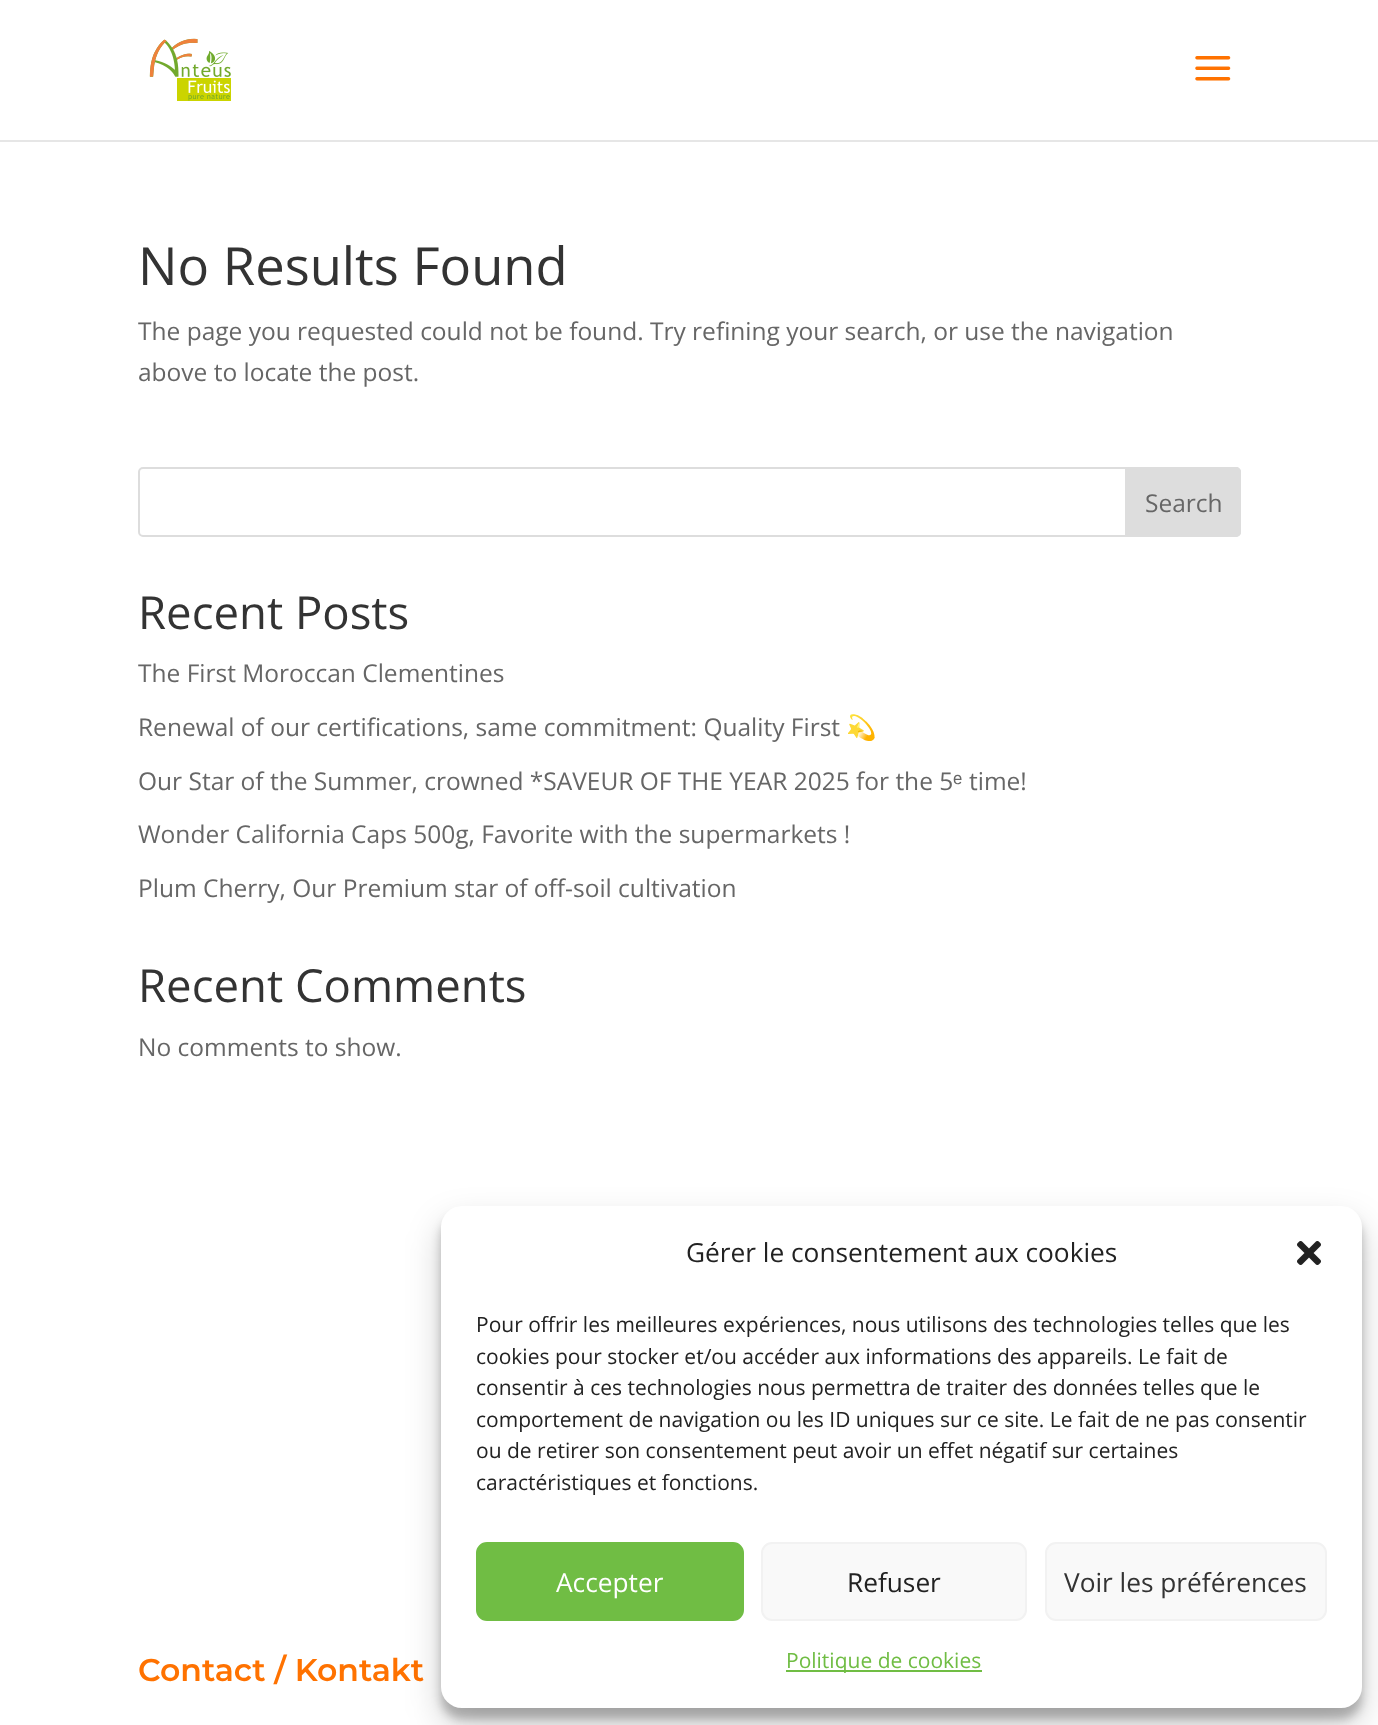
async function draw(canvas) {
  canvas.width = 1378;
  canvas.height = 1725;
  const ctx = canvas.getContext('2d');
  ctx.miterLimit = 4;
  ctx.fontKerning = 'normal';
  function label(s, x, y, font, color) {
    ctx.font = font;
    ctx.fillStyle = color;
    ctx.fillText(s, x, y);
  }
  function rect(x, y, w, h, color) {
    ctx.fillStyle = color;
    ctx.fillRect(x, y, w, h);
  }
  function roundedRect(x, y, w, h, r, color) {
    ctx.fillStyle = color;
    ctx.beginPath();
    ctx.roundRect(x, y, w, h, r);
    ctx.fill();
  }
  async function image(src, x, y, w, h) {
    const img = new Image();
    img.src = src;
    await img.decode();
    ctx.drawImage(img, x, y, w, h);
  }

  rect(0, 0, 1378, 1725, '#fff');
  rect(0, 140, 1378, 2, '#e6e6e6');
  await image('assets/img1.png', 149, 38, 82, 63);
  await image('assets/img2.png', 1195, 56, 36, 25);
  label('No Results Found', 138, 285, '52.5px Open Sans', '#333');
  label('The page you requested could not be found. Try refining your search, or use the navigation', 138, 340, '24.5px Open Sans', '#666');
  label('above to locate the post.', 138, 381, '24.5px Open Sans', '#666');
  ctx.beginPath();
  ctx.roundRect(139, 468, 1101, 68, 4);
  ctx.strokeStyle = '#ddd';
  ctx.lineWidth = 2;
  ctx.stroke();
  ctx.fillStyle = '#ddd';
  ctx.beginPath();
  ctx.roundRect(1126, 468, 114, 68, [0, 4, 4, 0]);
  ctx.fill();
  ctx.stroke();
  label('Search', 1145, 512, '24.5px Open Sans', '#666');
  label('Recent Posts', 138, 629, '45.5px Open Sans', '#333');
  label('The First Moroccan Clementines', 138, 682, '24.5px Open Sans', '#666');
  label('Renewal of our certifications, same commitment: Quality First', 138, 736, '24.5px Open Sans', '#666');
  label('💫', 846, 736, '24.5px Noto Color Emoji', '#666');
  label('Our Star of the Summer, crowned *SAVEUR OF THE YEAR 2025 for the 5', 138, 790, '24.5px Open Sans', '#666');
  label('ᵉ', 953, 790, '24.5px Liberation Sans', '#666');
  label('time!', 969, 790, '24.5px Open Sans', '#666');
  label('Wonder California Caps 500g, Favorite with the supermarkets !', 138, 843, '24.5px Open Sans', '#666');
  label('Plum Cherry, Our Premium star of off-soil cultivation', 138, 897, '24.5px Open Sans', '#666');
  label('Recent Comments', 138, 1002, '45.5px Open Sans', '#333');
  label('No comments to show.', 138, 1056, '24.5px Open Sans', '#666');
  label('Contact / Kontakt', 138, 1681, '600 31.5px Montserrat', '#ff7200');
  ctx.fillStyle = '#0000003b';
  ctx.filter = 'blur(5px)';
  ctx.beginPath();
  ctx.roundRect(441, 1216, 921, 503, 21);
  ctx.fill();
  ctx.filter = 'none';
  ctx.fillStyle = '#00000030';
  ctx.filter = 'blur(17.5px)';
  ctx.beginPath();
  ctx.roundRect(441, 1223, 921, 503, 21);
  ctx.fill();
  ctx.filter = 'none';
  roundedRect(441, 1206, 921, 502, 21, '#fff');
  label('Gérer le consentement aux cookies', 686, 1262, '26.25px Open Sans', '#222');
  await image('assets/img3.png', 1297, 1241, 24, 24);
  label('Pour offrir les meilleures expériences, nous utilisons des technologies telles que les', 476, 1332, '21px Open Sans', '#222');
  label('cookies pour stocker et/ou accéder aux informations des appareils. Le fait de', 476, 1364, '21px Open Sans', '#222');
  label('consentir à ces technologies nous permettra de traiter des données telles que le', 476, 1395, '21px Open Sans', '#222');
  label('comportement de navigation ou les ID uniques sur ce site. Le fait de ne pas consentir', 476, 1427, '21px Open Sans', '#222');
  label('ou de retirer son consentement peut avoir un effet négatif sur certaines', 476, 1458, '21px Open Sans', '#222');
  label('caractéristiques et fonctions.', 476, 1490, '21px Open Sans', '#222');
  ctx.fillStyle = '#70bd44';
  ctx.beginPath();
  ctx.roundRect(477, 1543, 266, 77, 10);
  ctx.fill();
  ctx.strokeStyle = '#70bd44';
  ctx.stroke();
  label('Accepter', 556, 1592, '26.25px Open Sans', '#fff');
  ctx.fillStyle = '#f9f9f9';
  ctx.beginPath();
  ctx.roundRect(762, 1543, 264, 77, 10);
  ctx.fill();
  ctx.strokeStyle = '#f2f2f2';
  ctx.stroke();
  label('Refuser', 847, 1592, '26.25px Open Sans', '#222');
  ctx.fillStyle = '#f9f9f9';
  ctx.beginPath();
  ctx.roundRect(1046, 1543, 280, 77, 10);
  ctx.fill();
  ctx.stroke();
  label('Voir les préférences', 1064, 1592, '26.25px Open Sans', '#333');
  rect(786, 1670, 196, 2, '#70bd44');
  label('Politique de cookies', 786, 1668, '21px Open Sans', '#70bd44');
}

draw(document.querySelector('canvas'));
